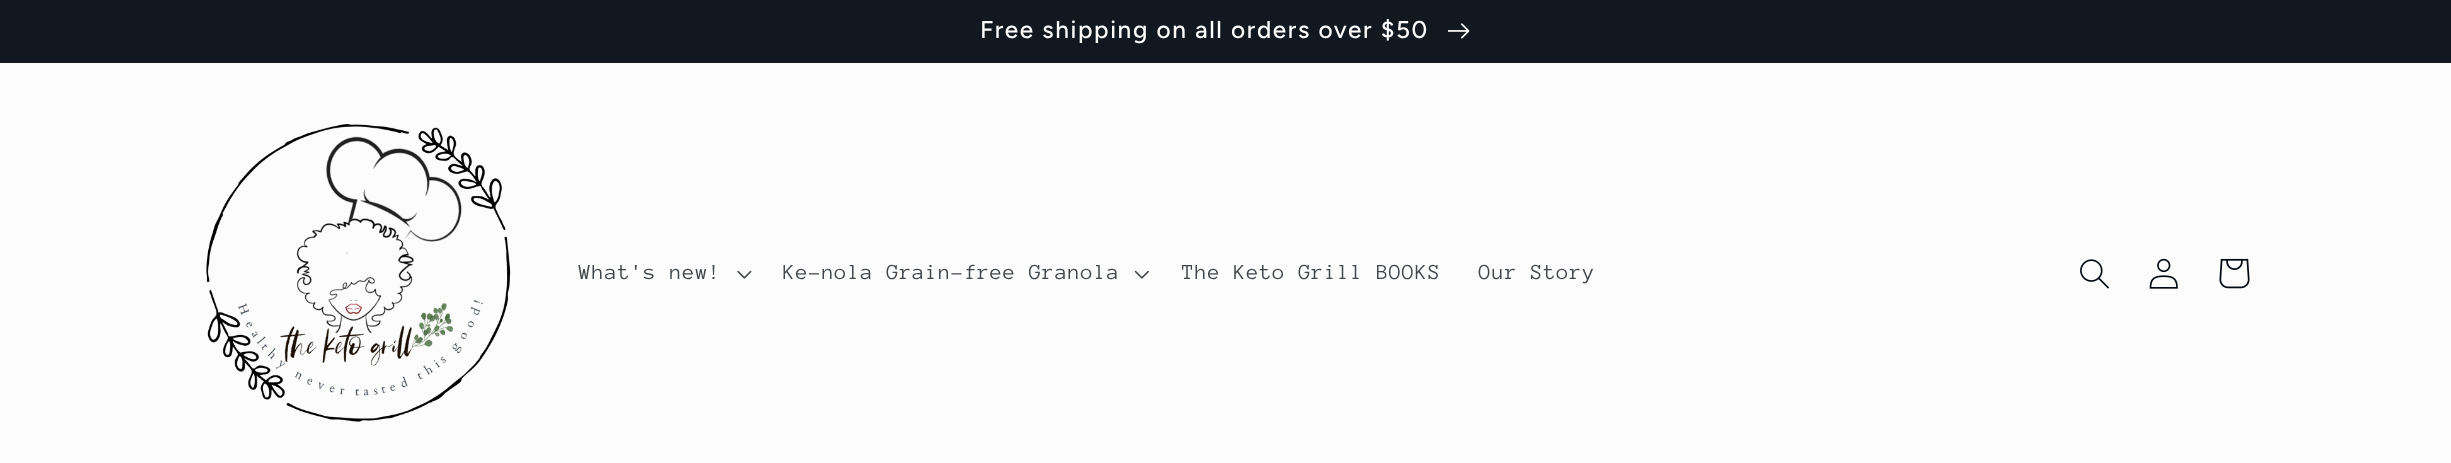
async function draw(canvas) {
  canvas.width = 2451;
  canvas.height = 463;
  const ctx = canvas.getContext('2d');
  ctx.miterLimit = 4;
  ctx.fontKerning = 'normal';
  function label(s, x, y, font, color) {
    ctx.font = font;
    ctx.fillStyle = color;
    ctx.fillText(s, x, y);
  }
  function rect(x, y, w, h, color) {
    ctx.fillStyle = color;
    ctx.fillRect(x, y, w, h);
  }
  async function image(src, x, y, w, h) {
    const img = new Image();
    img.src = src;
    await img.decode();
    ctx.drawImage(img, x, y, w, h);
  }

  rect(0, 0, 2451, 463, '#fcfcfc');
  rect(0, 62, 2451, 1, '#161c25');
  rect(0, 0, 2451, 62, '#111820');
  ctx.letterSpacing = '1.6px';
  label('Free shipping on all orders over $50', 980, 38, '500 24.4px Figtree', '#fcfcfc');
  await image('assets/img1.png', 1448, 23, 22, 16);
  await image('assets/img2.png', 206, 123, 305, 299);
  ctx.letterSpacing = '0.95px';
  label('What\'s new!', 579, 279, '22px Anonymous Pro', '#41464d');
  await image('assets/img3.png', 737, 270, 15, 9);
  label('Ke-nola Grain-free Granola', 783, 279, '22px Anonymous Pro', '#41464d');
  await image('assets/img4.png', 1134, 270, 15, 9);
  label('The Keto Grill BOOKS', 1182, 279, '22px Anonymous Pro', '#41464d');
  label('Our Story', 1479, 279, '22px Anonymous Pro', '#41464d');
  await image('assets/img5.png', 2080, 259, 29, 30);
  await image('assets/img6.png', 2149, 258, 29, 31);
  await image('assets/img7.png', 2219, 258, 31, 31);
}

draw(document.querySelector('canvas'));
